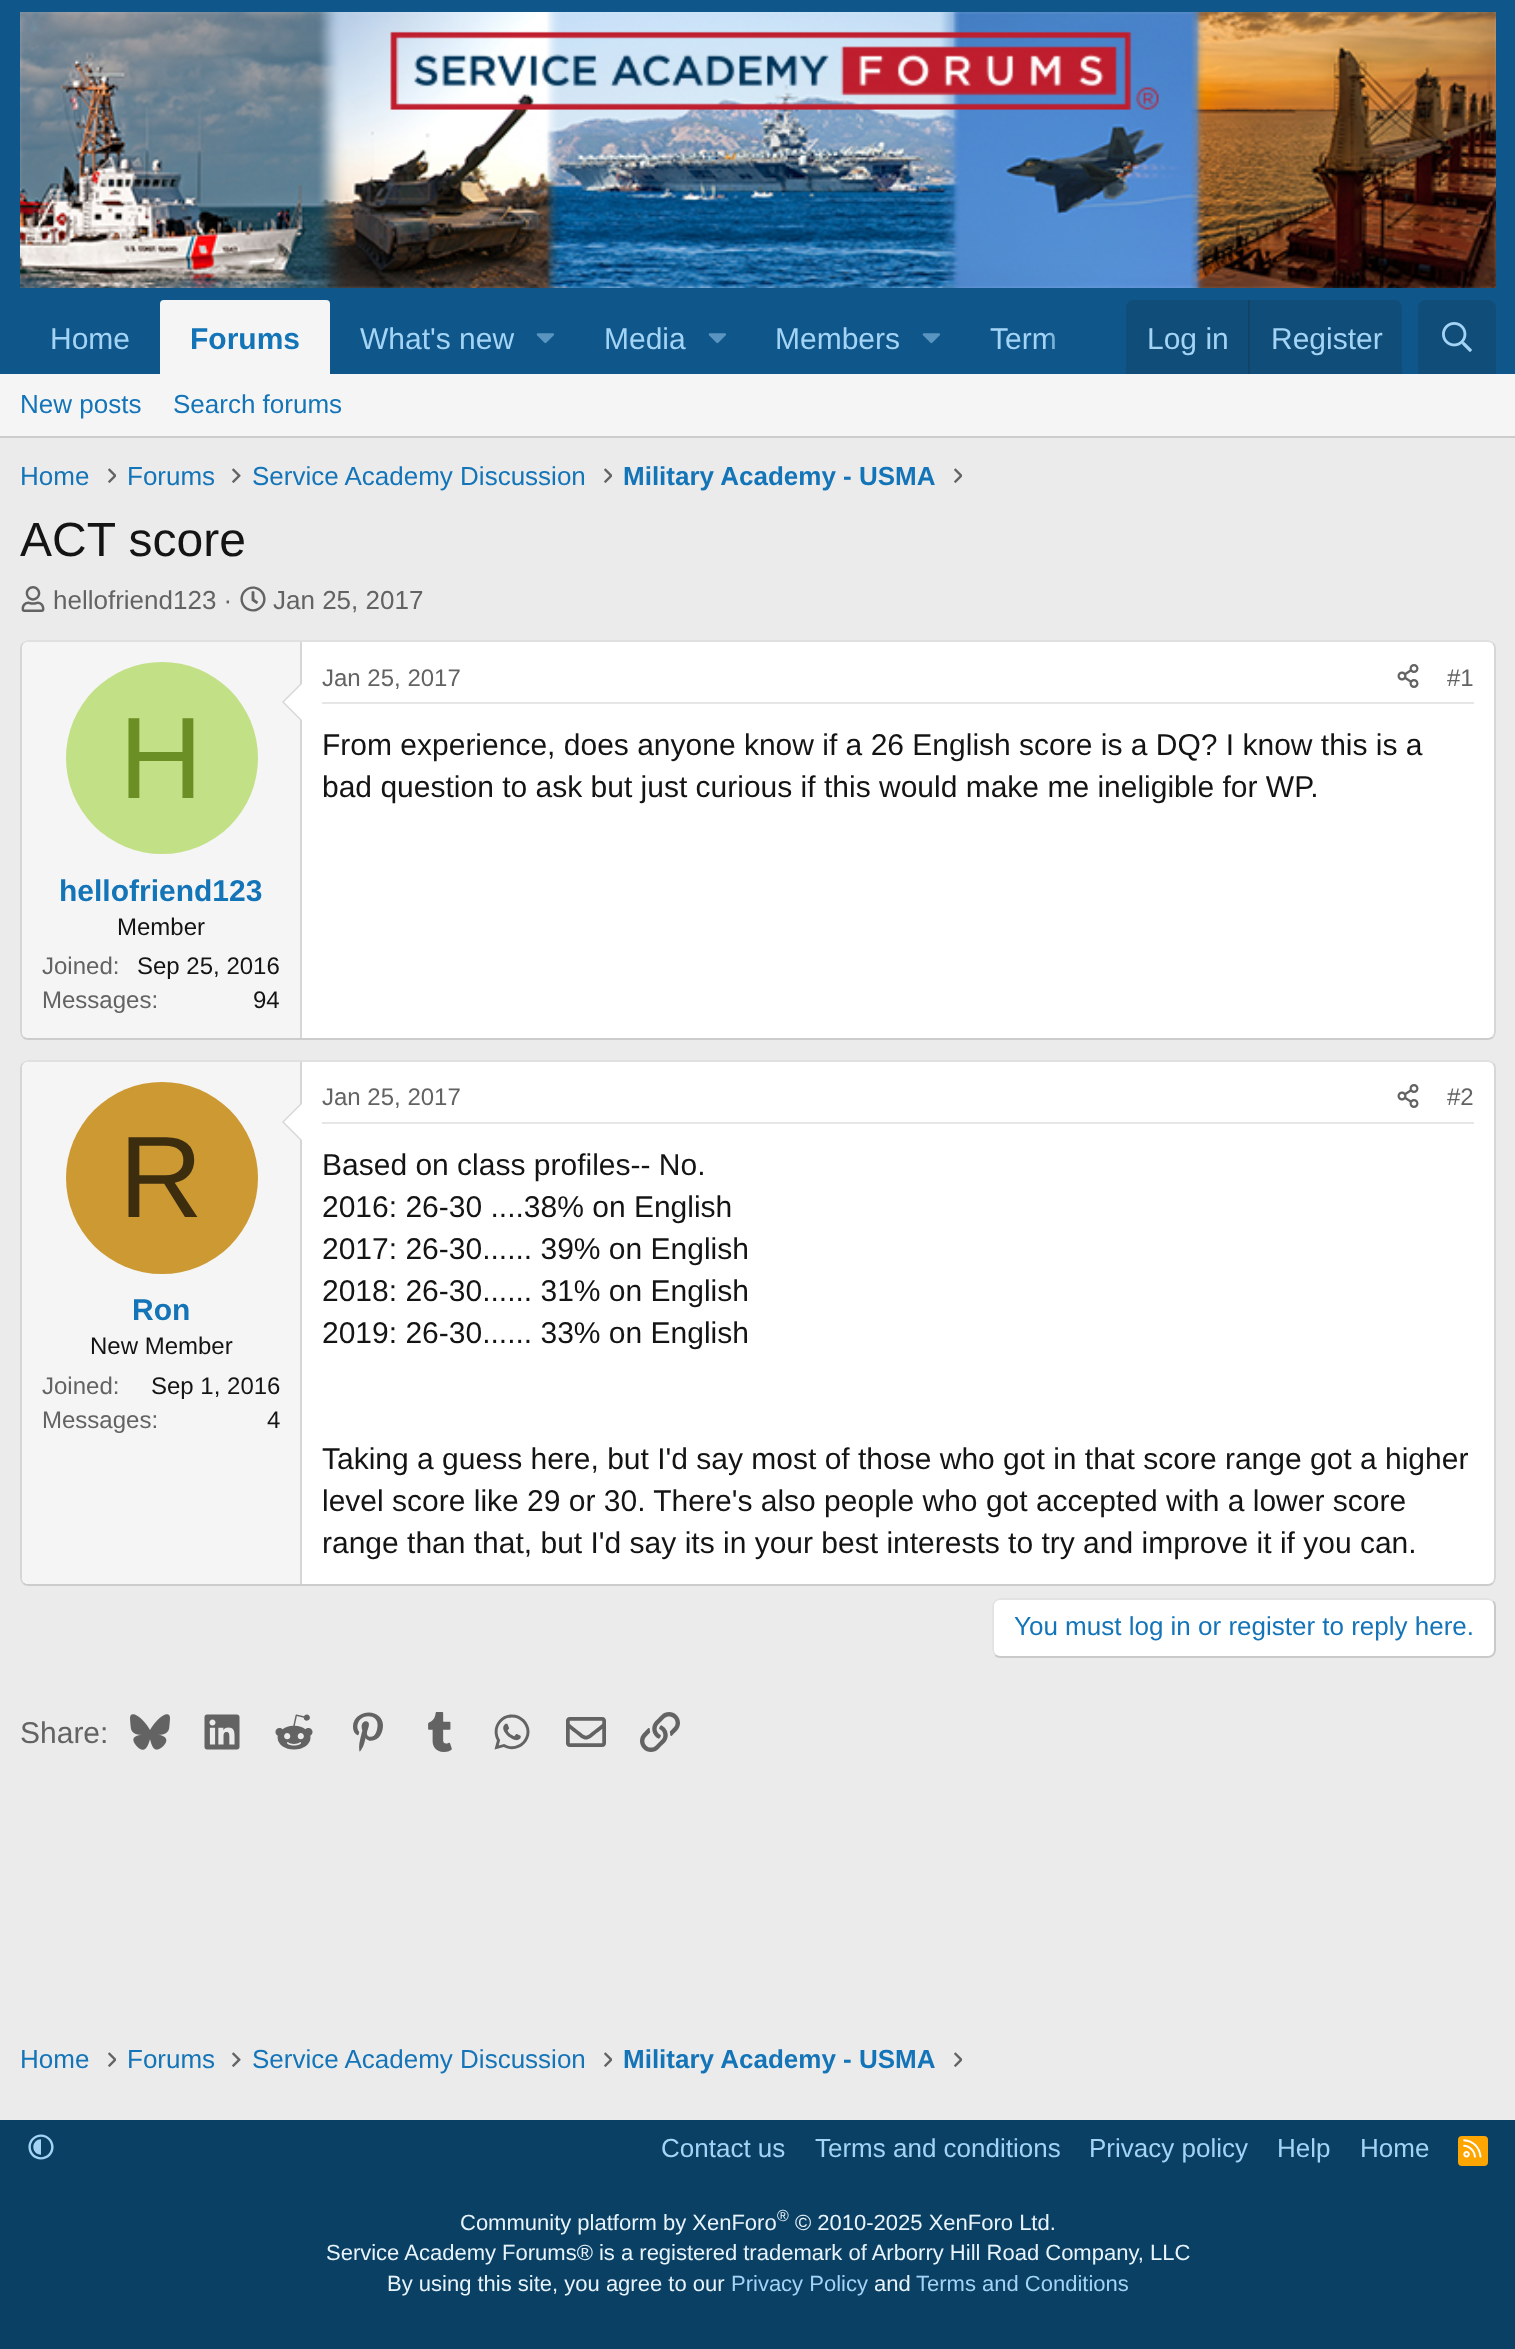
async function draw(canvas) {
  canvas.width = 1515;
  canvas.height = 2349;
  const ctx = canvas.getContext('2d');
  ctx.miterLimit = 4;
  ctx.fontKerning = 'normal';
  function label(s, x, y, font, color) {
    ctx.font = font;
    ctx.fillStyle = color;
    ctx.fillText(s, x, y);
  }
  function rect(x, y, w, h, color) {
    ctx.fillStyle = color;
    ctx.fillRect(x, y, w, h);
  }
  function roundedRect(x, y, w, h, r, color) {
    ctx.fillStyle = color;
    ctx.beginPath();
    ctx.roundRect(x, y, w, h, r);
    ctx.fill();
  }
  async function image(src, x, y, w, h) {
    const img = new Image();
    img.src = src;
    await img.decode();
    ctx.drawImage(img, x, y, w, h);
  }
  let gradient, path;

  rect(0, 0, 1515, 2349, '#ebebeb');
  rect(0, 0, 1515, 374, '#0f578a');
  await image('assets/img1.png', 20, 12, 1476, 276);
  label('Home', 50, 349, '30px Liberation Sans', '#a3d4f5');
  ctx.fillStyle = '#f5f5f5';
  ctx.beginPath();
  ctx.roundRect(160, 300, 170, 74, [4, 4, 0, 0]);
  ctx.fill();
  label('Forums', 190, 349, 'bold 30px Liberation Sans', '#1474b8');
  label('What\'s new', 360, 349, '30px Liberation Sans', '#a3d4f5');
  await image('assets/img2.png', 536, 333, 18, 11);
  label('Media', 604, 349, '30px Liberation Sans', '#a3d4f5');
  await image('assets/img2.png', 708, 333, 18, 11);
  label('Members', 775, 349, '30px Liberation Sans', '#a3d4f5');
  await image('assets/img2.png', 922, 333, 18, 11);
  label('Term', 990, 349, '30px Liberation Sans', '#a3d4f5');
  gradient = ctx.createLinearGradient(1046, 337, 1126, 337);
  gradient.addColorStop(0, '#0f578a00');
  gradient.addColorStop(0.33, '#0f578a');
  ctx.fillStyle = gradient;
  ctx.fillRect(1047, 332, 8, 17);
  ctx.fillStyle = '#104d78';
  ctx.beginPath();
  ctx.roundRect(1126, 300, 276, 74, [8, 8, 0, 0]);
  ctx.fill();
  label('Log in', 1147, 349, '30px Liberation Sans', '#a3d4f5');
  rect(1248, 300, 2, 74, '#114469');
  label('Register', 1271, 349, '30px Liberation Sans', '#a3d4f5');
  ctx.fillStyle = '#104d78';
  ctx.beginPath();
  ctx.roundRect(1418, 300, 78, 74, [8, 8, 0, 0]);
  ctx.fill();
  await image('assets/img3.png', 1442, 322, 30, 30);
  rect(0, 374, 1515, 62, '#f5f5f5');
  rect(0, 436, 1515, 2, '#ccc');
  label('New posts', 20, 413, '26px Liberation Sans', '#1474b8');
  label('Search forums', 173, 413, '26px Liberation Sans', '#1474b8');
  label('Home', 20, 485, '26px Liberation Sans', '#1474b8');
  await image('assets/img4.png', 108, 468, 8, 15);
  label('Forums', 127, 485, '26px Liberation Sans', '#1474b8');
  await image('assets/img5.png', 232, 468, 9, 15);
  label('Service Academy Discussion', 252, 485, '26px Liberation Sans', '#1474b8');
  await image('assets/img4.png', 604, 468, 8, 15);
  label('Military Academy - USMA', 623, 485, 'bold 26px Liberation Sans', '#1474b8');
  await image('assets/img4.png', 954, 468, 8, 15);
  label('ACT score', 20, 556, '48px Liberation Sans', '#141414');
  await image('assets/img6.png', 21, 586, 24, 26);
  label('hellofriend123 ·', 53, 609, '26px Liberation Sans', '#636363');
  await image('assets/img7.png', 240, 586, 26, 26);
  label('Jan 25, 2017', 273, 609, '26px Liberation Sans', '#636363');
  roundedRect(20, 640, 1476, 400, 8, '#fff');
  path = new Path2D('M23 643C24.5 641.5 26 641 28 641H1488C1490 641 1491.5 641.5 1493 643');
  ctx.strokeStyle = '#e0e0e0';
  ctx.lineWidth = 2;
  ctx.stroke(path);
  path = new Path2D('M1493 643C1494.5 644.5 1495 646 1495 648V1032C1495 1034 1494.5 1035.5 1493 1037');
  ctx.strokeStyle = '#d6d6d6';
  ctx.stroke(path);
  path = new Path2D('M1493 1037C1491.5 1038.5 1490 1039 1488 1039H28C26 1039 24.5 1038.5 23 1037');
  ctx.strokeStyle = '#ccc';
  ctx.stroke(path);
  path = new Path2D('M23 1037C21.5 1035.5 21 1034 21 1032V648C21 646 21.5 644.5 23 643');
  ctx.strokeStyle = '#d6d6d6';
  ctx.stroke(path);
  ctx.fillStyle = '#f5f5f5';
  ctx.beginPath();
  ctx.roundRect(22, 642, 280, 396, [6, 0, 0, 6]);
  ctx.fill();
  rect(300, 642, 2, 396, '#d6d6d6');
  path = new Path2D('M302 682V722L282 702Z');
  ctx.fill(path);
  ctx.fillStyle = '#fff';
  path = new Path2D('M302 684V720L284 702Z');
  ctx.fill(path);
  ctx.fillStyle = '#c2e085';
  ctx.beginPath();
  ctx.arc(162, 758, 96, 0, 2 * Math.PI);
  ctx.fill();
  label('H', 119, 798, '116px Liberation Sans', '#6b8f24');
  label('hellofriend123', 59, 901, 'bold 30px Liberation Sans', '#1474b8');
  label('Member', 117, 935, '24px Liberation Sans', '#141414');
  label('Joined:', 42, 974, '24px Liberation Sans', '#636363');
  label('Sep 25, 2016', 137, 974, '24px Liberation Sans', '#141414');
  label('Messages:', 42, 1008, '24px Liberation Sans', '#636363');
  label('94', 253, 1008, '24px Liberation Sans', '#141414');
  rect(322, 702, 1152, 2, '#e6e6e6');
  label('Jan 25, 2017', 322, 686, '24px Liberation Sans', '#636363');
  await image('assets/img8.png', 1397, 664, 22, 24);
  label('#1', 1447, 686, '24px Liberation Sans', '#636363');
  label('From experience, does anyone know if a 26 English score is a DQ? I know this is a', 322, 755, '30px Liberation Sans', '#141414');
  label('bad question to ask but just curious if this would make me ineligible for WP.', 322, 797, '30px Liberation Sans', '#141414');
  roundedRect(20, 1060, 1476, 526, 8, '#fff');
  path = new Path2D('M23 1063C24.5 1061.5 26 1061 28 1061H1488C1490 1061 1491.5 1061.5 1493 1063');
  ctx.strokeStyle = '#e0e0e0';
  ctx.stroke(path);
  path = new Path2D('M1493 1063C1494.5 1064.5 1495 1066 1495 1068V1578C1495 1580 1494.5 1581.5 1493 1583');
  ctx.strokeStyle = '#d6d6d6';
  ctx.stroke(path);
  path = new Path2D('M1493 1583C1491.5 1584.5 1490 1585 1488 1585H28C26 1585 24.5 1584.5 23 1583');
  ctx.strokeStyle = '#ccc';
  ctx.stroke(path);
  path = new Path2D('M23 1583C21.5 1581.5 21 1580 21 1578V1068C21 1066 21.5 1064.5 23 1063');
  ctx.strokeStyle = '#d6d6d6';
  ctx.stroke(path);
  ctx.fillStyle = '#f5f5f5';
  ctx.beginPath();
  ctx.roundRect(22, 1062, 280, 522, [6, 0, 0, 6]);
  ctx.fill();
  rect(300, 1062, 2, 522, '#d6d6d6');
  path = new Path2D('M302 1102V1142L282 1122Z');
  ctx.fill(path);
  ctx.fillStyle = '#fff';
  path = new Path2D('M302 1104V1140L284 1122Z');
  ctx.fill(path);
  ctx.fillStyle = '#c93';
  ctx.beginPath();
  ctx.arc(162, 1178, 96, 0, 2 * Math.PI);
  ctx.fill();
  label('R', 119, 1217, '116px Liberation Sans', '#3d2d0f');
  label('Ron', 132, 1320, 'bold 30px Liberation Sans', '#1474b8');
  label('New Member', 90, 1354, '24px Liberation Sans', '#141414');
  label('Joined:', 42, 1394, '24px Liberation Sans', '#636363');
  label('Sep 1, 2016', 151, 1394, '24px Liberation Sans', '#141414');
  label('Messages:', 42, 1428, '24px Liberation Sans', '#636363');
  label('4', 267, 1428, '24px Liberation Sans', '#141414');
  rect(322, 1122, 1152, 2, '#e6e6e6');
  label('Jan 25, 2017', 322, 1105, '24px Liberation Sans', '#636363');
  await image('assets/img8.png', 1397, 1084, 22, 24);
  label('#2', 1447, 1105, '24px Liberation Sans', '#636363');
  label('Based on class profiles-- No.', 322, 1175, '30px Liberation Sans', '#141414');
  label('2016: 26-30 ....38% on English', 322, 1217, '30px Liberation Sans', '#141414');
  label('2017: 26-30...... 39% on English', 322, 1259, '30px Liberation Sans', '#141414');
  label('2018: 26-30...... 31% on English', 322, 1301, '30px Liberation Sans', '#141414');
  label('2019: 26-30...... 33% on English', 322, 1343, '30px Liberation Sans', '#141414');
  label('Taking a guess here, but I\'d say most of those who got in that score range got a higher', 322, 1469, '30px Liberation Sans', '#141414');
  label('level score like 29 or 30. There\'s also people who got accepted with a lower score', 322, 1511, '30px Liberation Sans', '#141414');
  label('range than that, but I\'d say its in your best interests to try and improve it if you can.', 322, 1553, '30px Liberation Sans', '#141414');
  roundedRect(992, 1598, 504, 60, 8, '#fff');
  path = new Path2D('M1493 1601C1494.5 1602.5 1495 1604 1495 1606V1650C1495 1652 1494.5 1653.5 1493 1655C1491.5 1656.5 1490 1657 1488 1657H1000C998 1657 996.5 1656.5 995 1655');
  ctx.strokeStyle = '#c9c9c9';
  ctx.stroke(path);
  path = new Path2D('M995 1655C993.5 1653.5 993 1652 993 1650V1606C993 1604 993.5 1602.5 995 1601C996.5 1599.5 998 1599 1000 1599H1488C1490 1599 1491.5 1599.5 1493 1601');
  ctx.strokeStyle = '#e3e3e3';
  ctx.stroke(path);
  label('You must log in or register to reply here.', 1014, 1635, '26px Liberation Sans', '#1474b8');
  label('Share:', 20, 1743, '30px Liberation Sans', '#636363');
  await image('assets/img9.png', 130, 1714, 40, 36);
  await image('assets/img10.png', 204, 1714, 36, 36);
  await image('assets/img11.png', 275, 1714, 38, 36);
  await image('assets/img12.png', 353, 1712, 30, 40);
  await image('assets/img13.png', 428, 1712, 24, 40);
  await image('assets/img14.png', 494, 1714, 36, 36);
  await image('assets/img15.png', 566, 1717, 40, 30);
  await image('assets/img16.png', 640, 1712, 40, 40);
  label('Home', 20, 2068, '26px Liberation Sans', '#1474b8');
  await image('assets/img4.png', 108, 2052, 8, 15);
  label('Forums', 127, 2068, '26px Liberation Sans', '#1474b8');
  await image('assets/img5.png', 232, 2052, 9, 15);
  label('Service Academy Discussion', 252, 2068, '26px Liberation Sans', '#1474b8');
  await image('assets/img4.png', 604, 2052, 8, 15);
  label('Military Academy - USMA', 623, 2068, 'bold 26px Liberation Sans', '#1474b8');
  await image('assets/img4.png', 954, 2052, 8, 15);
  rect(0, 2120, 1515, 229, '#0b4065');
  await image('assets/img17.png', 28, 2134, 26, 26);
  label('Contact us', 661, 2157, '26px Liberation Sans', '#a3d4f5');
  label('Terms and conditions', 815, 2157, '26px Liberation Sans', '#a3d4f5');
  label('Privacy policy', 1089, 2157, '26px Liberation Sans', '#a3d4f5');
  label('Help', 1277, 2157, '26px Liberation Sans', '#a3d4f5');
  label('Home', 1360, 2157, '26px Liberation Sans', '#a3d4f5');
  roundedRect(1458, 2136, 30, 30, 4, '#ffa500');
  await image('assets/img18.png', 1463, 2139, 19, 19);
  label('Community platform by XenForo', 460, 2230, '22px Liberation Sans', '#e8f4fc');
  label('®', 777, 2221, '16px Liberation Sans', '#e8f4fc');
  label('© 2010-2025 XenForo Ltd.', 795, 2230, '22px Liberation Sans', '#e8f4fc');
  label('Service Academy Forums® is a registered trademark of Arborry Hill Road Company, LLC', 326, 2260, '22px Liberation Sans', '#e8f4fc');
  label('By using this site, you agree to our', 387, 2291, '22px Liberation Sans', '#e8f4fc');
  label('Privacy Policy', 731, 2291, '22px Liberation Sans', '#a3d4f5');
  label('and', 874, 2291, '22px Liberation Sans', '#e8f4fc');
  label('Terms and Conditions', 916, 2291, '22px Liberation Sans', '#a3d4f5');
}

draw(document.querySelector('canvas'));
